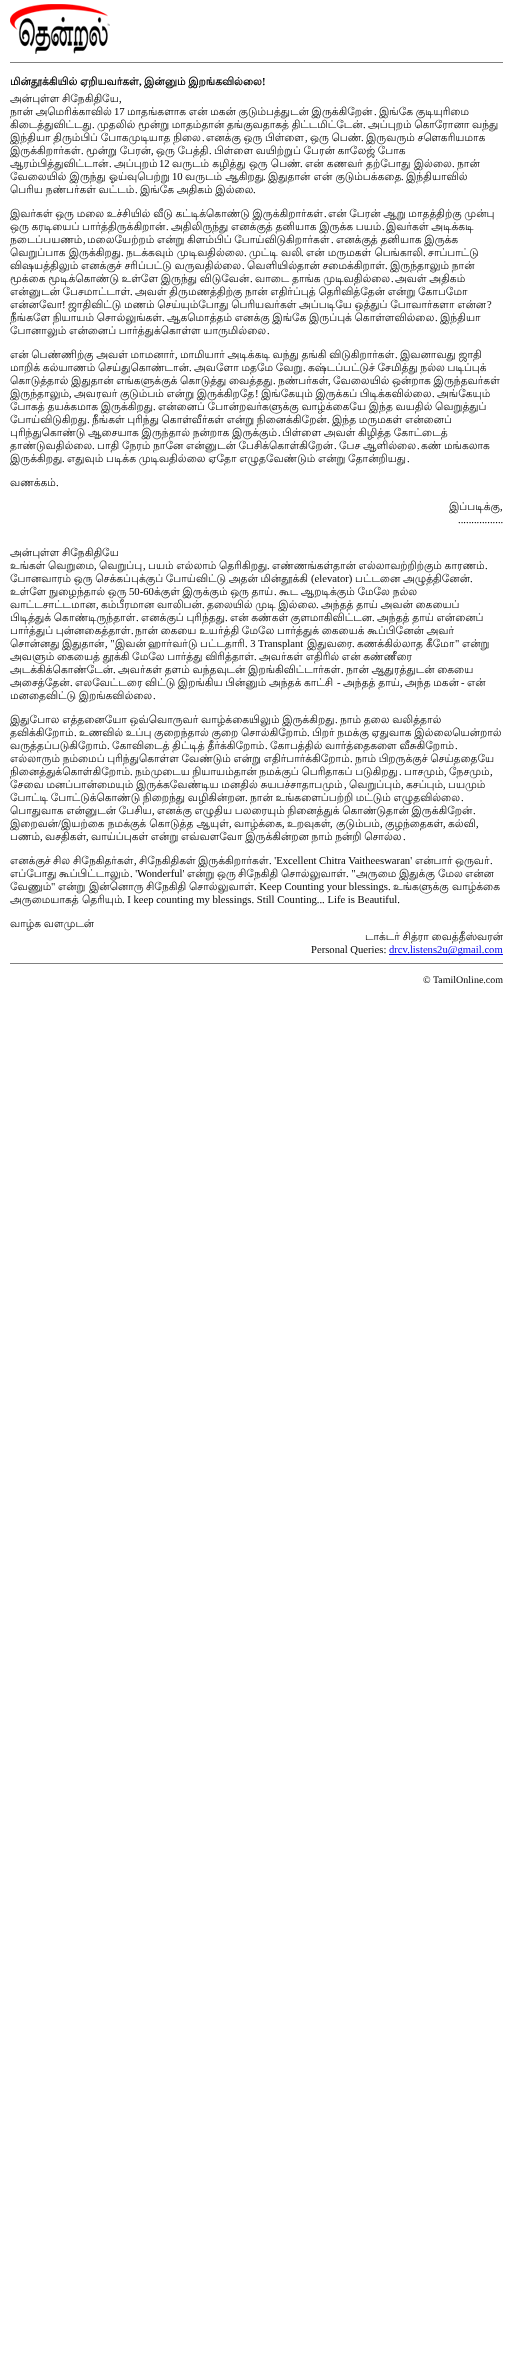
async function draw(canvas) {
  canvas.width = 513;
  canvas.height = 2375;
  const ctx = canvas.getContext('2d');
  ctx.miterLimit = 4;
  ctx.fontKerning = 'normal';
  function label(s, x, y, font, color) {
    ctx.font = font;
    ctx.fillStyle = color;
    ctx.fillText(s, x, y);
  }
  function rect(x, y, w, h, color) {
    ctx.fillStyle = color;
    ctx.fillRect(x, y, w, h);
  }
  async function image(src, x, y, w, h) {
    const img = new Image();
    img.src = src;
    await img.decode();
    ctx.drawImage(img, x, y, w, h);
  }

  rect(0, 0, 513, 2375, '#fff');
  await image('assets/img1.png', 10, 4, 100, 50);
  rect(10, 62, 493, 1, '#808080');
  ctx.wordSpacing = '-0.5px';
  label('மின்தூக்கியில் ஏறியவர்கள்', 10, 85, 'bold 10.65px Lohit Tamil', '#000');
  ctx.wordSpacing = '0px';
  label(',', 139, 85, 'bold 10.65px Liberation Serif', '#000');
  ctx.wordSpacing = '-0.5px';
  label('இன்னும் இறங்கவில்லை', 144, 85, 'bold 10.65px Lohit Tamil', '#000');
  ctx.wordSpacing = '0px';
  label('!', 262, 85, 'bold 10.65px Liberation Serif', '#000');
  ctx.wordSpacing = '-0.5px';
  label('அன்புள்ள சிநேகிதியே', 10, 102, '10.65px Lohit Tamil', '#000');
  ctx.wordSpacing = '0px';
  label(',', 119, 102, '10.65px Liberation Serif', '#000');
  ctx.wordSpacing = '-0.5px';
  label('நான் அமெரிக்காவில்', 10, 115, '10.65px Lohit Tamil', '#000');
  ctx.wordSpacing = '0px';
  label('17', 114, 115, '10.65px Liberation Serif', '#000');
  ctx.wordSpacing = '-0.5px';
  label('மாதங்களாக என் மகன் குடும்பத்துடன் இருக்கிறேன்', 127, 115, '10.65px Lohit Tamil', '#000');
  ctx.wordSpacing = '0px';
  label('.', 374, 115, '10.65px Liberation Serif', '#000');
  ctx.wordSpacing = '-0.5px';
  label('இங்கே குடியுரிமை', 379, 115, '10.65px Lohit Tamil', '#000');
  ctx.wordSpacing = '0px';
  label('கிடைத்துவிட்டது', 10, 128, '10.65px Lohit Tamil', '#000');
  label('.', 92, 128, '10.65px Liberation Serif', '#000');
  ctx.wordSpacing = '-0.5px';
  label('முதலில் மூன்று மாதம்தான் தங்குவதாகத் திட்டமிட்டேன்', 97, 128, '10.65px Lohit Tamil', '#000');
  ctx.wordSpacing = '0px';
  label('.', 363, 128, '10.65px Liberation Serif', '#000');
  ctx.wordSpacing = '-0.5px';
  label('அப்புறம் கொரோனா வந்து', 368, 128, '10.65px Lohit Tamil', '#000');
  label('இந்தியா திரும்பிப் போகமுடியாத நிலை', 10, 141, '10.65px Lohit Tamil', '#000');
  ctx.wordSpacing = '0px';
  label('.', 202, 141, '10.65px Liberation Serif', '#000');
  ctx.wordSpacing = '-0.5px';
  label('எனக்கு ஒரு பிள்ளை', 206, 141, '10.65px Lohit Tamil', '#000');
  ctx.wordSpacing = '0px';
  label(',', 305, 141, '10.65px Liberation Serif', '#000');
  ctx.wordSpacing = '-0.5px';
  label('ஒரு பெண்', 310, 141, '10.65px Lohit Tamil', '#000');
  ctx.wordSpacing = '0px';
  label('.', 361, 141, '10.65px Liberation Serif', '#000');
  ctx.wordSpacing = '-0.5px';
  label('இருவரும் சௌகரியமாக', 366, 141, '10.65px Lohit Tamil', '#000');
  ctx.wordSpacing = '0px';
  label('இருக்கிறார்கள்', 10, 154, '10.65px Lohit Tamil', '#000');
  label('.', 81, 154, '10.65px Liberation Serif', '#000');
  ctx.wordSpacing = '-0.5px';
  label('மூன்று பேரன்', 86, 154, '10.65px Lohit Tamil', '#000');
  ctx.wordSpacing = '0px';
  label(',', 151, 154, '10.65px Liberation Serif', '#000');
  ctx.wordSpacing = '-0.5px';
  label('ஒரு பேத்தி', 156, 154, '10.65px Lohit Tamil', '#000');
  ctx.wordSpacing = '0px';
  label('.', 209, 154, '10.65px Liberation Serif', '#000');
  ctx.wordSpacing = '-0.5px';
  label('பிள்ளை வயிற்றுப் பேரன் காலேஜ் போக', 214, 154, '10.65px Lohit Tamil', '#000');
  ctx.wordSpacing = '0px';
  label('ஆரம்பித்துவிட்டான்', 10, 167, '10.65px Lohit Tamil', '#000');
  label('.', 109, 167, '10.65px Liberation Serif', '#000');
  label('அப்புறம்', 114, 167, '10.65px Lohit Tamil', '#000');
  label('12', 159, 167, '10.65px Liberation Serif', '#000');
  label('வருடம் கழித்து ஒரு பெண்', 172, 167, '10.65px Lohit Tamil', '#000');
  label('.', 300, 167, '10.65px Liberation Serif', '#000');
  label('என் கணவர் தற்போது இல்லை', 305, 167, '10.65px Lohit Tamil', '#000');
  label('.', 452, 167, '10.65px Liberation Serif', '#000');
  label('நான்', 457, 167, '10.65px Lohit Tamil', '#000');
  label('வேலையில் இருந்து ஓய்வுபெற்று', 10, 180, '10.65px Lohit Tamil', '#000');
  label('10', 172, 180, '10.65px Liberation Serif', '#000');
  label('வருடம் ஆகிறது', 185, 180, '10.65px Lohit Tamil', '#000');
  label('.', 263, 180, '10.65px Liberation Serif', '#000');
  label('இதுதான் என் குடும்பக்கதை', 268, 180, '10.65px Lohit Tamil', '#000');
  label('.', 401, 180, '10.65px Liberation Serif', '#000');
  label('இந்தியாவில்', 406, 180, '10.65px Lohit Tamil', '#000');
  ctx.wordSpacing = '-0.5px';
  label('பெரிய நண்பர்கள் வட்டம்', 10, 193, '10.65px Lohit Tamil', '#000');
  ctx.wordSpacing = '0px';
  label('.', 135, 193, '10.65px Liberation Serif', '#000');
  ctx.wordSpacing = '-0.5px';
  label('இங்கே அதிகம் இல்லை', 140, 193, '10.65px Lohit Tamil', '#000');
  ctx.wordSpacing = '0px';
  label('.', 253, 193, '10.65px Liberation Serif', '#000');
  ctx.wordSpacing = '-0.5px';
  label('இவர்கள் ஒரு மலை உச்சியில் வீடு கட்டிக்கொண்டு இருக்கிறார்கள்', 10, 217, '10.65px Lohit Tamil', '#000');
  ctx.wordSpacing = '0px';
  label('.', 324, 217, '10.65px Liberation Serif', '#000');
  ctx.wordSpacing = '-0.5px';
  label('என் பேரன் ஆறு மாதத்திற்கு முன்பு', 328, 217, '10.65px Lohit Tamil', '#000');
  label('ஒரு கரடியைப் பார்த்திருக்கிறான்', 10, 230, '10.65px Lohit Tamil', '#000');
  ctx.wordSpacing = '0px';
  label('.', 166, 230, '10.65px Liberation Serif', '#000');
  ctx.wordSpacing = '-0.5px';
  label('அதிலிருந்து எனக்குத் தனியாக இருக்க பயம்', 171, 230, '10.65px Lohit Tamil', '#000');
  ctx.wordSpacing = '0px';
  label('.', 382, 230, '10.65px Liberation Serif', '#000');
  ctx.wordSpacing = '-0.5px';
  label('இவர்கள் அடிக்கடி', 386, 230, '10.65px Lohit Tamil', '#000');
  ctx.wordSpacing = '0px';
  label('நடைப்பயணம்', 10, 243, '10.65px Lohit Tamil', '#000');
  label(',', 83, 243, '10.65px Liberation Serif', '#000');
  ctx.wordSpacing = '-0.5px';
  label('மலையேற்றம் என்று கிளம்பிப் போய்விடுகிறார்கள்', 87, 243, '10.65px Lohit Tamil', '#000');
  ctx.wordSpacing = '0px';
  label('.', 331, 243, '10.65px Liberation Serif', '#000');
  ctx.wordSpacing = '-0.5px';
  label('எனக்குத் தனியாக இருக்க', 336, 243, '10.65px Lohit Tamil', '#000');
  ctx.wordSpacing = '0px';
  label('வெறுப்பாக இருக்கிறது', 10, 256, '10.65px Lohit Tamil', '#000');
  label('.', 121, 256, '10.65px Liberation Serif', '#000');
  label('நடக்கவும் முடிவதில்லை', 126, 256, '10.65px Lohit Tamil', '#000');
  label('.', 244, 256, '10.65px Liberation Serif', '#000');
  label('முட்டி வலி', 249, 256, '10.65px Lohit Tamil', '#000');
  label('.', 301, 256, '10.65px Liberation Serif', '#000');
  label('என் மருமகள் பெங்காலி', 306, 256, '10.65px Lohit Tamil', '#000');
  label('.', 423, 256, '10.65px Liberation Serif', '#000');
  label('சாப்பாட்டு', 428, 256, '10.65px Lohit Tamil', '#000');
  ctx.wordSpacing = '-0.5px';
  label('விஷயத்திலும் எனக்குச் சரிப்பட்டு வருவதில்லை', 10, 269, '10.65px Lohit Tamil', '#000');
  ctx.wordSpacing = '0px';
  label('.', 242, 269, '10.65px Liberation Serif', '#000');
  ctx.wordSpacing = '-0.5px';
  label('வெளியில்தான் சமைக்கிறாள்', 247, 269, '10.65px Lohit Tamil', '#000');
  ctx.wordSpacing = '0px';
  label('.', 385, 269, '10.65px Liberation Serif', '#000');
  ctx.wordSpacing = '-0.5px';
  label('இருந்தாலும் நான்', 390, 269, '10.65px Lohit Tamil', '#000');
  label('மூக்கை மூடிக்கொண்டு உள்ளே இருந்து விடுவேன்', 10, 282, '10.65px Lohit Tamil', '#000');
  ctx.wordSpacing = '0px';
  label('.', 250, 282, '10.65px Liberation Serif', '#000');
  ctx.wordSpacing = '-0.5px';
  label('வாடை தாங்க முடிவதில்லை', 255, 282, '10.65px Lohit Tamil', '#000');
  ctx.wordSpacing = '0px';
  label('.', 391, 282, '10.65px Liberation Serif', '#000');
  ctx.wordSpacing = '-0.5px';
  label('அவள் அதிகம்', 395, 282, '10.65px Lohit Tamil', '#000');
  label('என்னுடன் பேசமாட்டாள்', 10, 295, '10.65px Lohit Tamil', '#000');
  ctx.wordSpacing = '0px';
  label('.', 130, 295, '10.65px Liberation Serif', '#000');
  ctx.wordSpacing = '-0.5px';
  label('அவள் திருமணத்திற்கு நான் எதிர்ப்புத் தெரிவித்தேன் என்று கோபமோ', 135, 295, '10.65px Lohit Tamil', '#000');
  ctx.wordSpacing = '0px';
  label('என்னவோ', 10, 308, '10.65px Lohit Tamil', '#000');
  label('!', 62, 308, '10.65px Liberation Serif', '#000');
  ctx.wordSpacing = '-0.5px';
  label('ஜாதிவிட்டு மணம் செய்யும்போது பெரியவர்கள் அப்படியே ஒத்துப் போவார்களா என்ன', 68, 308, '10.65px Lohit Tamil', '#000');
  ctx.wordSpacing = '0px';
  label('?', 487, 308, '10.65px Liberation Serif', '#000');
  ctx.wordSpacing = '-0.5px';
  label('நீங்களே நியாயம் சொல்லுங்கள்', 10, 321, '10.65px Lohit Tamil', '#000');
  ctx.wordSpacing = '0px';
  label('.', 162, 321, '10.65px Liberation Serif', '#000');
  ctx.wordSpacing = '-0.5px';
  label('ஆகமொத்தம் எனக்கு இங்கே இருப்புக் கொள்ளவில்லை', 167, 321, '10.65px Lohit Tamil', '#000');
  ctx.wordSpacing = '0px';
  label('.', 435, 321, '10.65px Liberation Serif', '#000');
  label('இந்தியா', 440, 321, '10.65px Lohit Tamil', '#000');
  ctx.wordSpacing = '-0.5px';
  label('போனாலும் என்னைப் பார்த்துக்கொள்ள யாருமில்லை', 10, 334, '10.65px Lohit Tamil', '#000');
  ctx.wordSpacing = '0px';
  label('.', 267, 334, '10.65px Liberation Serif', '#000');
  ctx.wordSpacing = '-0.5px';
  label('என் பெண்ணிற்கு அவள் மாமனார்', 10, 358, '10.65px Lohit Tamil', '#000');
  ctx.wordSpacing = '0px';
  label(',', 175, 358, '10.65px Liberation Serif', '#000');
  ctx.wordSpacing = '-0.5px';
  label('மாமியார் அடிக்கடி வந்து தங்கி விடுகிறார்கள்', 180, 358, '10.65px Lohit Tamil', '#000');
  ctx.wordSpacing = '0px';
  label('.', 395, 358, '10.65px Liberation Serif', '#000');
  ctx.wordSpacing = '-0.5px';
  label('இவனாவது ஜாதி', 400, 358, '10.65px Lohit Tamil', '#000');
  label('மாறிக் கல்யாணம் செய்துகொண்டான்', 10, 371, '10.65px Lohit Tamil', '#000');
  ctx.wordSpacing = '0px';
  label('.', 189, 371, '10.65px Liberation Serif', '#000');
  ctx.wordSpacing = '-0.5px';
  label('அவளோ மதமே வேறு', 194, 371, '10.65px Lohit Tamil', '#000');
  ctx.wordSpacing = '0px';
  label('.', 303, 371, '10.65px Liberation Serif', '#000');
  ctx.wordSpacing = '-0.5px';
  label('கஷ்டப்பட்டுச் சேமித்து நல்ல படிப்புக்', 308, 371, '10.65px Lohit Tamil', '#000');
  label('கொடுத்தால் இதுதான் எங்களுக்குக் கொடுத்து வைத்தது', 10, 384, '10.65px Lohit Tamil', '#000');
  ctx.wordSpacing = '0px';
  label('.', 273, 384, '10.65px Liberation Serif', '#000');
  label('நண்பர்கள்', 278, 384, '10.65px Lohit Tamil', '#000');
  label(',', 328, 384, '10.65px Liberation Serif', '#000');
  ctx.wordSpacing = '-0.5px';
  label('வேலையில் ஒன்றாக இருந்தவர்கள்', 333, 384, '10.65px Lohit Tamil', '#000');
  ctx.wordSpacing = '0px';
  label('இருந்தாலும்', 10, 397, '10.65px Lohit Tamil', '#000');
  label(',', 69, 397, '10.65px Liberation Serif', '#000');
  ctx.wordSpacing = '-0.5px';
  label('அவரவர் குடும்பம் என்று இருக்கிறதே', 74, 397, '10.65px Lohit Tamil', '#000');
  ctx.wordSpacing = '0px';
  label('!', 255, 397, '10.65px Liberation Serif', '#000');
  ctx.wordSpacing = '-0.5px';
  label('இங்கேயும் இருக்கப் பிடிக்கவில்லை', 261, 397, '10.65px Lohit Tamil', '#000');
  ctx.wordSpacing = '0px';
  label('.', 432, 397, '10.65px Liberation Serif', '#000');
  label('அங்கேயும்', 437, 397, '10.65px Lohit Tamil', '#000');
  ctx.wordSpacing = '-0.5px';
  label('போகத் தயக்கமாக இருக்கிறது', 10, 410, '10.65px Lohit Tamil', '#000');
  ctx.wordSpacing = '0px';
  label('.', 153, 410, '10.65px Liberation Serif', '#000');
  ctx.wordSpacing = '-0.5px';
  label('என்னைப் போன்றவர்களுக்கு வாழ்க்கையே இந்த வயதில் வெறுத்துப்', 158, 410, '10.65px Lohit Tamil', '#000');
  ctx.wordSpacing = '0px';
  label('போய்விடுகிறது', 10, 423, '10.65px Lohit Tamil', '#000');
  label('.', 87, 423, '10.65px Liberation Serif', '#000');
  ctx.wordSpacing = '-0.5px';
  label('நீங்கள் புரிந்து கொள்வீர்கள் என்று நினைக்கிறேன்', 92, 423, '10.65px Lohit Tamil', '#000');
  ctx.wordSpacing = '0px';
  label('.', 327, 423, '10.65px Liberation Serif', '#000');
  ctx.wordSpacing = '-0.5px';
  label('இந்த மருமகள் என்னைப்', 332, 423, '10.65px Lohit Tamil', '#000');
  label('புரிந்துகொண்டு ஆசையாக இருந்தால் நன்றாக இருக்கும்', 10, 436, '10.65px Lohit Tamil', '#000');
  ctx.wordSpacing = '0px';
  label('.', 278, 436, '10.65px Liberation Serif', '#000');
  ctx.wordSpacing = '-0.5px';
  label('பிள்ளை அவள் கிழித்த கோட்டைத்', 282, 436, '10.65px Lohit Tamil', '#000');
  ctx.wordSpacing = '0px';
  label('தாண்டுவதில்லை', 10, 449, '10.65px Lohit Tamil', '#000');
  label('.', 92, 449, '10.65px Liberation Serif', '#000');
  ctx.wordSpacing = '-0.5px';
  label('பாதி நேரம் நானே என்னுடன் பேசிக்கொள்கிறேன்', 97, 449, '10.65px Lohit Tamil', '#000');
  ctx.wordSpacing = '0px';
  label('.', 334, 449, '10.65px Liberation Serif', '#000');
  ctx.wordSpacing = '-0.5px';
  label('பேச ஆளில்லை', 339, 449, '10.65px Lohit Tamil', '#000');
  ctx.wordSpacing = '0px';
  label('.', 417, 449, '10.65px Liberation Serif', '#000');
  ctx.wordSpacing = '-0.5px';
  label('கண் மங்கலாக', 421, 449, '10.65px Lohit Tamil', '#000');
  ctx.wordSpacing = '0px';
  label('இருக்கிறது', 10, 462, '10.65px Lohit Tamil', '#000');
  label('.', 62, 462, '10.65px Liberation Serif', '#000');
  ctx.wordSpacing = '-0.5px';
  label('எதுவும் படிக்க முடிவதில்லை ஏதோ எழுதவேண்டும் என்று தோன்றியது', 67, 462, '10.65px Lohit Tamil', '#000');
  ctx.wordSpacing = '0px';
  label('.', 407, 462, '10.65px Liberation Serif', '#000');
  label('வணக்கம்', 10, 486, '10.65px Lohit Tamil', '#000');
  label('.', 56, 486, '10.65px Liberation Serif', '#000');
  label('இப்படிக்கு', 449, 510, '10.65px Lohit Tamil', '#000');
  label(',', 500, 510, '10.65px Liberation Serif', '#000');
  label('.................', 458, 523, '10.65px Liberation Serif', '#000');
  ctx.wordSpacing = '-0.5px';
  label('அன்புள்ள சிநேகிதியே', 10, 556, '10.65px Lohit Tamil', '#000');
  label('உங்கள் வெறுமை', 10, 569, '10.65px Lohit Tamil', '#000');
  ctx.wordSpacing = '0px';
  label(',', 94, 569, '10.65px Liberation Serif', '#000');
  label('வெறுப்பு', 99, 569, '10.65px Lohit Tamil', '#000');
  label(',', 143, 569, '10.65px Liberation Serif', '#000');
  ctx.wordSpacing = '-0.5px';
  label('பயம் எல்லாம் தெரிகிறது', 148, 569, '10.65px Lohit Tamil', '#000');
  ctx.wordSpacing = '0px';
  label('.', 267, 569, '10.65px Liberation Serif', '#000');
  ctx.wordSpacing = '-0.5px';
  label('எண்ணங்கள்தான் எல்லாவற்றிற்கும் காரணம்', 272, 569, '10.65px Lohit Tamil', '#000');
  ctx.wordSpacing = '0px';
  label('.', 485, 569, '10.65px Liberation Serif', '#000');
  ctx.wordSpacing = '-0.5px';
  label('போனவாரம் ஒரு செக்கப்புக்குப் போய்விட்டு அதன் மின்தூக்கி', 10, 582, '10.65px Lohit Tamil', '#000');
  ctx.wordSpacing = '0px';
  label('(elevator)', 311, 582, '10.65px Liberation Serif', '#000');
  ctx.wordSpacing = '-0.5px';
  label('பட்டனை அழுத்தினேன்', 355, 582, '10.65px Lohit Tamil', '#000');
  ctx.wordSpacing = '0px';
  label('.', 470, 582, '10.65px Liberation Serif', '#000');
  ctx.wordSpacing = '-0.5px';
  label('உள்ளே நுழைந்தால் ஒரு', 10, 595, '10.65px Lohit Tamil', '#000');
  ctx.wordSpacing = '0px';
  label('50-60', 129, 595, '10.65px Liberation Serif', '#000');
  ctx.wordSpacing = '-0.5px';
  label('க்குள் இருக்கும் ஒரு தாய்', 154, 595, '10.65px Lohit Tamil', '#000');
  ctx.wordSpacing = '0px';
  label('.', 274, 595, '10.65px Liberation Serif', '#000');
  ctx.wordSpacing = '-0.5px';
  label('கூட ஆறடிக்கும் மேலே நல்ல', 279, 595, '10.65px Lohit Tamil', '#000');
  ctx.wordSpacing = '0px';
  label('வாட்டசாட்டமான', 10, 608, '10.65px Lohit Tamil', '#000');
  label(',', 96, 608, '10.65px Liberation Serif', '#000');
  ctx.wordSpacing = '-0.5px';
  label('கம்பீரமான வாலிபன்', 101, 608, '10.65px Lohit Tamil', '#000');
  ctx.wordSpacing = '0px';
  label('.', 202, 608, '10.65px Liberation Serif', '#000');
  ctx.wordSpacing = '-0.5px';
  label('தலையில் முடி இல்லை', 207, 608, '10.65px Lohit Tamil', '#000');
  ctx.wordSpacing = '0px';
  label('.', 316, 608, '10.65px Liberation Serif', '#000');
  ctx.wordSpacing = '-0.5px';
  label('அந்தத் தாய் அவன் கையைப்', 321, 608, '10.65px Lohit Tamil', '#000');
  label('பிடித்துக் கொண்டிருந்தாள்', 10, 621, '10.65px Lohit Tamil', '#000');
  ctx.wordSpacing = '0px';
  label('.', 136, 621, '10.65px Liberation Serif', '#000');
  ctx.wordSpacing = '-0.5px';
  label('எனக்குப் புரிந்தது', 141, 621, '10.65px Lohit Tamil', '#000');
  ctx.wordSpacing = '0px';
  label('.', 225, 621, '10.65px Liberation Serif', '#000');
  ctx.wordSpacing = '-0.5px';
  label('என் கண்கள் குளமாகிவிட்டன', 230, 621, '10.65px Lohit Tamil', '#000');
  ctx.wordSpacing = '0px';
  label('.', 372, 621, '10.65px Liberation Serif', '#000');
  ctx.wordSpacing = '-0.5px';
  label('அந்தத் தாய் என்னைப்', 377, 621, '10.65px Lohit Tamil', '#000');
  label('பார்த்துப் புன்னகைத்தாள்', 10, 634, '10.65px Lohit Tamil', '#000');
  ctx.wordSpacing = '0px';
  label('.', 131, 634, '10.65px Liberation Serif', '#000');
  ctx.wordSpacing = '-0.5px';
  label('நான் கையை உயர்த்தி மேலே பார்த்துக் கையைக் கூப்பினேன் அவர்', 135, 634, '10.65px Lohit Tamil', '#000');
  ctx.wordSpacing = '0px';
  label('சொன்னது', 10, 647, '10.65px Lohit Tamil', '#000');
  label('இதுதான்', 62, 647, '10.65px Lohit Tamil', '#000');
  label(', "', 105, 647, '10.65px Liberation Serif', '#000');
  label('இவன்', 115, 647, '10.65px Lohit Tamil', '#000');
  label('ஹார்வர்டு', 148, 647, '10.65px Lohit Tamil', '#000');
  label('பட்டதாரி', 200, 647, '10.65px Lohit Tamil', '#000');
  label('. 3 Transplant', 245, 647, '10.65px Liberation Serif', '#000');
  label('இதுவரை', 307, 647, '10.65px Lohit Tamil', '#000');
  label('கணக்கில்லாத', 357, 647, '10.65px Lohit Tamil', '#000');
  label('கீமோ', 426, 647, '10.65px Lohit Tamil', '#000');
  label('"', 455, 647, '10.65px Liberation Serif', '#000');
  label('என்று', 462, 647, '10.65px Lohit Tamil', '#000');
  label('.', 352, 647, '10.65px Liberation Serif', '#000');
  ctx.wordSpacing = '-0.5px';
  label('அவளும் கையைத் தூக்கி மேலே பார்த்து விரித்தாள்', 10, 660, '10.65px Lohit Tamil', '#000');
  ctx.wordSpacing = '0px';
  label('.', 254, 660, '10.65px Liberation Serif', '#000');
  ctx.wordSpacing = '-0.5px';
  label('அவர்கள் எதிரில் என் கண்ணீரை', 259, 660, '10.65px Lohit Tamil', '#000');
  ctx.wordSpacing = '0px';
  label('அடக்கிக்கொண்டேன்', 10, 673, '10.65px Lohit Tamil', '#000');
  label('.', 113, 673, '10.65px Liberation Serif', '#000');
  ctx.wordSpacing = '-0.5px';
  label('அவர்கள் தளம் வந்தவுடன் இறங்கிவிட்டார்கள்', 118, 673, '10.65px Lohit Tamil', '#000');
  ctx.wordSpacing = '0px';
  label('.', 341, 673, '10.65px Liberation Serif', '#000');
  ctx.wordSpacing = '-0.5px';
  label('நான் ஆதுரத்துடன் கையை', 346, 673, '10.65px Lohit Tamil', '#000');
  ctx.wordSpacing = '0px';
  label('அசைத்தேன்', 10, 686, '10.65px Lohit Tamil', '#000');
  ctx.wordSpacing = '-0.5px';
  label('எலவேட்டரை விட்டு இறங்கிய பின்னும் அந்தக் காட்சி', 75, 686, '10.65px Lohit Tamil', '#000');
  ctx.wordSpacing = '0px';
  label('-', 337, 686, '10.65px Liberation Serif', '#000');
  ctx.wordSpacing = '-0.5px';
  label('அந்தத் தாய்', 343, 686, '10.65px Lohit Tamil', '#000');
  label('அந்த மகன்', 405, 686, '10.65px Lohit Tamil', '#000');
  ctx.wordSpacing = '0px';
  label('-', 461, 686, '10.65px Liberation Serif', '#000');
  label('என்', 467, 686, '10.65px Lohit Tamil', '#000');
  label('.', 70, 686, '10.65px Liberation Serif', '#000');
  label(',', 400, 686, '10.65px Liberation Serif', '#000');
  ctx.wordSpacing = '-0.5px';
  label('மனதைவிட்டு இறங்கவில்லை', 10, 699, '10.65px Lohit Tamil', '#000');
  ctx.wordSpacing = '0px';
  label('.', 153, 699, '10.65px Liberation Serif', '#000');
  ctx.wordSpacing = '-0.5px';
  label('இதுபோல எத்தனையோ ஒவ்வொருவர் வாழ்க்கையிலும் இருக்கிறது', 10, 723, '10.65px Lohit Tamil', '#000');
  ctx.wordSpacing = '0px';
  label('.', 335, 723, '10.65px Liberation Serif', '#000');
  ctx.wordSpacing = '-0.5px';
  label('நாம் தலை வலித்தால்', 340, 723, '10.65px Lohit Tamil', '#000');
  ctx.wordSpacing = '0px';
  label('தவிக்கிறோம்', 10, 736, '10.65px Lohit Tamil', '#000');
  label('.', 74, 736, '10.65px Liberation Serif', '#000');
  ctx.wordSpacing = '-0.5px';
  label('உணவில் உப்பு குறைந்தால் குறை சொல்கிறோம்', 79, 736, '10.65px Lohit Tamil', '#000');
  ctx.wordSpacing = '0px';
  label('.', 307, 736, '10.65px Liberation Serif', '#000');
  ctx.wordSpacing = '-0.5px';
  label('பிறர் நமக்கு ஏதுவாக இல்லையென்றால்', 312, 736, '10.65px Lohit Tamil', '#000');
  ctx.wordSpacing = '0px';
  label('வருத்தப்படுகிறோம்', 10, 749, '10.65px Lohit Tamil', '#000');
  label('.', 107, 749, '10.65px Liberation Serif', '#000');
  ctx.wordSpacing = '-0.5px';
  label('கோவிடைத் திட்டித் தீர்க்கிறோம்', 112, 749, '10.65px Lohit Tamil', '#000');
  ctx.wordSpacing = '0px';
  label('.', 265, 749, '10.65px Liberation Serif', '#000');
  ctx.wordSpacing = '-0.5px';
  label('கோபத்தில் வார்த்தைகளை வீசுகிறோம்', 270, 749, '10.65px Lohit Tamil', '#000');
  ctx.wordSpacing = '0px';
  label('.', 455, 749, '10.65px Liberation Serif', '#000');
  ctx.wordSpacing = '-0.5px';
  label('எல்லாரும் நம்மைப் புரிந்துகொள்ள வேண்டும் என்று எதிர்பார்க்கிறோம்', 10, 762, '10.65px Lohit Tamil', '#000');
  ctx.wordSpacing = '0px';
  label('.', 350, 762, '10.65px Liberation Serif', '#000');
  ctx.wordSpacing = '-0.5px';
  label('நாம் பிறருக்குச் செய்ததையே', 355, 762, '10.65px Lohit Tamil', '#000');
  ctx.wordSpacing = '0px';
  label('நினைத்துக்கொள்கிறோம்', 10, 775, '10.65px Lohit Tamil', '#000');
  label('.', 130, 775, '10.65px Liberation Serif', '#000');
  ctx.wordSpacing = '-0.5px';
  label('நம்முடைய நியாயம்தான் நமக்குப் பெரிதாகப் படுகிறது', 135, 775, '10.65px Lohit Tamil', '#000');
  ctx.wordSpacing = '0px';
  label('.', 399, 775, '10.65px Liberation Serif', '#000');
  label('பாசமும்', 404, 775, '10.65px Lohit Tamil', '#000');
  label(',', 444, 775, '10.65px Liberation Serif', '#000');
  label('நேசமும்', 449, 775, '10.65px Lohit Tamil', '#000');
  label(',', 490, 775, '10.65px Liberation Serif', '#000');
  ctx.wordSpacing = '-0.5px';
  label('சேவை மனப்பான்மையும் இருக்கவேண்டிய மனதில் சுயபச்சாதாபமும்', 10, 788, '10.65px Lohit Tamil', '#000');
  ctx.wordSpacing = '0px';
  label(',', 344, 788, '10.65px Liberation Serif', '#000');
  label('வெறுப்பும்', 349, 788, '10.65px Lohit Tamil', '#000');
  label(',', 401, 788, '10.65px Liberation Serif', '#000');
  label('கசப்பும்', 406, 788, '10.65px Lohit Tamil', '#000');
  label(',', 443, 788, '10.65px Liberation Serif', '#000');
  label('பயமும்', 448, 788, '10.65px Lohit Tamil', '#000');
  ctx.wordSpacing = '-0.5px';
  label('போட்டி போட்டுக்கொண்டு நிறைந்து வழிகின்றன', 10, 801, '10.65px Lohit Tamil', '#000');
  ctx.wordSpacing = '0px';
  label('.', 245, 801, '10.65px Liberation Serif', '#000');
  ctx.wordSpacing = '-0.5px';
  label('நான் உங்களைப்பற்றி மட்டும் எழுதவில்லை', 250, 801, '10.65px Lohit Tamil', '#000');
  ctx.wordSpacing = '0px';
  label('.', 461, 801, '10.65px Liberation Serif', '#000');
  ctx.wordSpacing = '-0.5px';
  label('பொதுவாக என்னுடன் பேசிய', 10, 814, '10.65px Lohit Tamil', '#000');
  ctx.wordSpacing = '0px';
  label(',', 152, 814, '10.65px Liberation Serif', '#000');
  ctx.wordSpacing = '-0.5px';
  label('எனக்கு எழுதிய பலரையும் நினைத்துக் கொண்டுதான் இருக்கிறேன்', 157, 814, '10.65px Lohit Tamil', '#000');
  ctx.wordSpacing = '0px';
  label('.', 473, 814, '10.65px Liberation Serif', '#000');
  label('இறைவன்', 10, 827, '10.65px Lohit Tamil', '#000');
  label('/', 58, 827, '10.65px Liberation Serif', '#000');
  label('இயற்கை நமக்குக் கொடுத்த ஆயுள்', 61, 827, '10.65px Lohit Tamil', '#000');
  label(',', 229, 827, '10.65px Liberation Serif', '#000');
  label('வாழ்க்கை', 234, 827, '10.65px Lohit Tamil', '#000');
  label(',', 282, 827, '10.65px Liberation Serif', '#000');
  label('உறவுகள்', 287, 827, '10.65px Lohit Tamil', '#000');
  label(',', 330, 827, '10.65px Liberation Serif', '#000');
  label('குடும்பம்', 336, 827, '10.65px Lohit Tamil', '#000');
  label(',', 380, 827, '10.65px Liberation Serif', '#000');
  label('குழந்தைகள்', 385, 827, '10.65px Lohit Tamil', '#000');
  label(',', 443, 827, '10.65px Liberation Serif', '#000');
  label('கல்வி', 448, 827, '10.65px Lohit Tamil', '#000');
  label(',', 476, 827, '10.65px Liberation Serif', '#000');
  label('பணம்', 10, 840, '10.65px Lohit Tamil', '#000');
  label(',', 40, 840, '10.65px Liberation Serif', '#000');
  label('வசதிகள்', 45, 840, '10.65px Lohit Tamil', '#000');
  label(',', 86, 840, '10.65px Liberation Serif', '#000');
  ctx.wordSpacing = '-0.5px';
  label('வாய்ப்புகள் என்று எவ்வளவோ இருக்கின்றன நாம் நன்றி சொல்ல', 91, 840, '10.65px Lohit Tamil', '#000');
  ctx.wordSpacing = '0px';
  label('.', 403, 840, '10.65px Liberation Serif', '#000');
  label('எனக்குச்', 10, 864, '10.65px Lohit Tamil', '#000');
  label('சில', 53, 864, '10.65px Lohit Tamil', '#000');
  label('சிநேகிதர்கள்', 73, 864, '10.65px Lohit Tamil', '#000');
  label(',', 134, 864, '10.65px Liberation Serif', '#000');
  label('சிநேகிதிகள்', 139, 864, '10.65px Lohit Tamil', '#000');
  label('இருக்கிறார்கள்', 198, 864, '10.65px Lohit Tamil', '#000');
  label('. \'Excellent Chitra Vaitheeswaran\'', 269, 864, '10.65px Liberation Serif', '#000');
  label('என்பார்', 415, 864, '10.65px Lohit Tamil', '#000');
  label('ஒருவர்', 455, 864, '10.65px Lohit Tamil', '#000');
  label('.', 490, 864, '10.65px Liberation Serif', '#000');
  label('எப்போது', 10, 877, '10.65px Lohit Tamil', '#000');
  label('கூப்பிட்டாலும்', 59, 877, '10.65px Lohit Tamil', '#000');
  label('. \'Wonderful\'', 130, 877, '10.65px Liberation Serif', '#000');
  label('என்று', 187, 877, '10.65px Lohit Tamil', '#000');
  label('ஒரு', 217, 877, '10.65px Lohit Tamil', '#000');
  label('சிநேகிதி', 238, 877, '10.65px Lohit Tamil', '#000');
  label('சொல்லுவாள்', 281, 877, '10.65px Lohit Tamil', '#000');
  label('. "', 346, 877, '10.65px Liberation Serif', '#000');
  label('அருமை', 356, 877, '10.65px Lohit Tamil', '#000');
  label('இதுக்கு', 399, 877, '10.65px Lohit Tamil', '#000');
  label('மேல', 438, 877, '10.65px Lohit Tamil', '#000');
  label('என்ன', 465, 877, '10.65px Lohit Tamil', '#000');
  label('வேணும்', 10, 890, '10.65px Lohit Tamil', '#000');
  label('"', 51, 890, '10.65px Liberation Serif', '#000');
  label('என்று', 58, 890, '10.65px Lohit Tamil', '#000');
  label('இன்னொரு', 89, 890, '10.65px Lohit Tamil', '#000');
  label('சிநேகிதி', 146, 890, '10.65px Lohit Tamil', '#000');
  label('சொல்லுவாள்', 189, 890, '10.65px Lohit Tamil', '#000');
  label('. Keep Counting your blessings.', 254, 890, '10.65px Liberation Serif', '#000');
  label('உங்களுக்கு', 393, 890, '10.65px Lohit Tamil', '#000');
  label('வாழ்க்கை', 452, 890, '10.65px Lohit Tamil', '#000');
  label('அருமையாகத்', 10, 903, '10.65px Lohit Tamil', '#000');
  label('தெரியும்', 82, 903, '10.65px Lohit Tamil', '#000');
  label('. I keep counting my blessings. Still Counting... Life is Beautiful.', 122, 903, '10.65px Liberation Serif', '#000');
  ctx.wordSpacing = '-0.5px';
  label('வாழ்க வளமுடன்', 10, 927, '10.65px Lohit Tamil', '#000');
  label('டாக்டர் சித்ரா வைத்தீஸ்வரன்', 365, 940, '10.65px Lohit Tamil', '#000');
  ctx.wordSpacing = '0px';
  label('Personal Queries:', 311, 953, '10.65px Liberation Serif', '#000');
  rect(389, 954, 114, 1, '#00e');
  label('drcv.listens2u@gmail.com', 389, 953, '10.65px Liberation Serif', '#00e');
  rect(10, 963, 493, 1, '#808080');
  label('© TamilOnline.com', 423, 983, '10px Liberation Serif', '#000');
}

draw(document.querySelector('canvas'));
